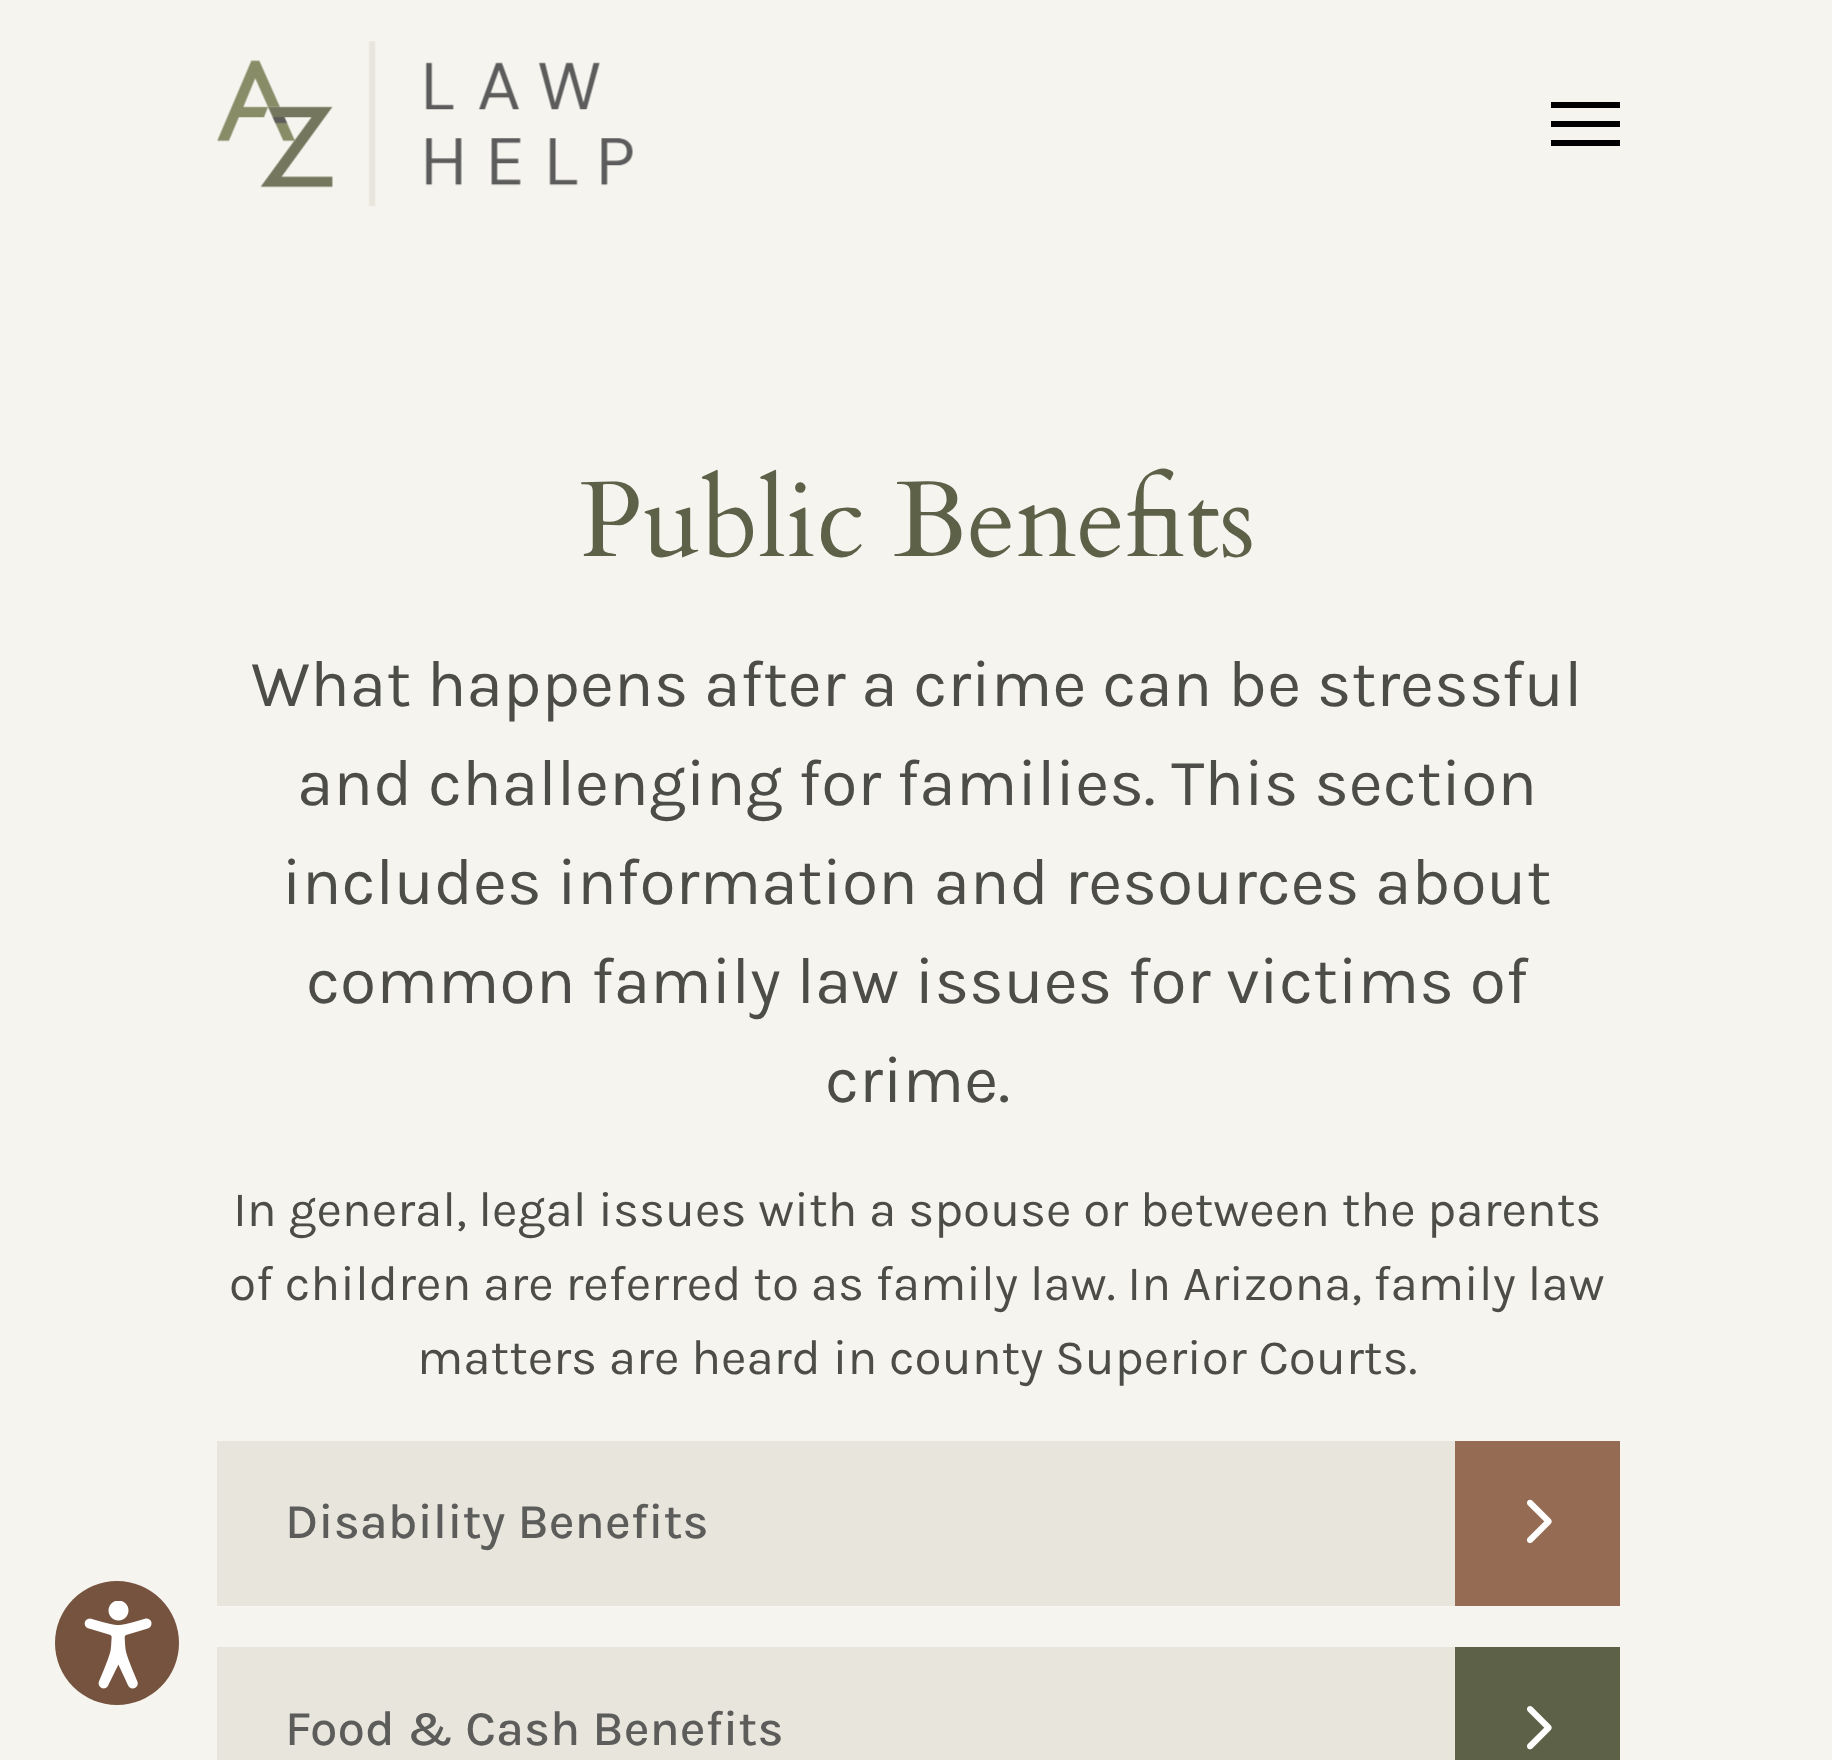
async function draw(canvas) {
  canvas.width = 1832;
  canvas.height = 1760;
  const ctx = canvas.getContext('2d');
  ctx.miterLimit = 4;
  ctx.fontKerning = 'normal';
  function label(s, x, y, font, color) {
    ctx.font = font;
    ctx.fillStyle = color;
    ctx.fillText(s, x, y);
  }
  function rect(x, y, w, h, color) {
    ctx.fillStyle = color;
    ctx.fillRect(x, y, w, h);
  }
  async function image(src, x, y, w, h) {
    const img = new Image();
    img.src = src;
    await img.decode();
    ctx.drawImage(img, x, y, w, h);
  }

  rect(0, 0, 1832, 1760, '#f5f4ef');
  ctx.fillStyle = '#75533e';
  ctx.beginPath();
  ctx.arc(117, 1643, 62, 0, 2 * Math.PI);
  ctx.fill();
  await image('assets/img1.png', 84, 1601, 68, 88);
  await image('assets/img2.png', 217, 41, 416, 166);
  rect(1551, 102, 69, 6, '#000');
  rect(1551, 121, 69, 6, '#000');
  rect(1551, 140, 69, 6, '#000');
  label('Public Benefits', 579, 556, '107.25px Cardo', '#5d6148');
  label('What happens after a crime can be stressful', 251, 706, '66px Karla', '#4c4c49');
  label('and challenging for families. This section', 297, 805, '66px Karla', '#4c4c49');
  label('includes information and resources about', 282, 904, '66px Karla', '#4c4c49');
  label('common family law issues for victims of', 306, 1003, '66px Karla', '#4c4c49');
  label('crime.', 825, 1102, '66px Karla', '#4c4c49');
  label('In general, legal issues with a spouse or between the parents', 233, 1226, '49.5px Karla', '#4c4c49');
  label('of children are referred to as family law. In Arizona, family law', 229, 1300, '49.5px Karla', '#4c4c49');
  label('matters are heard in county Superior Courts.', 417, 1374, '49.5px Karla', '#4c4c49');
  rect(217, 1441, 1238, 165, '#e8e6dc');
  label('Disability Benefits', 285, 1538, '500 49.5px Karla', '#5c5c5a');
  rect(1455, 1441, 165, 165, '#966b54');
  await image('assets/img3.png', 1527, 1499, 25, 45);
  rect(217, 1647, 1238, 113, '#e8e6dc');
  label('Food & Cash Benefits', 285, 1745, '500 49.5px Karla', '#5c5c5a');
  rect(1455, 1647, 165, 113, '#5d6148');
  await image('assets/img4.png', 1527, 1706, 25, 44);
}

draw(document.querySelector('canvas'));
